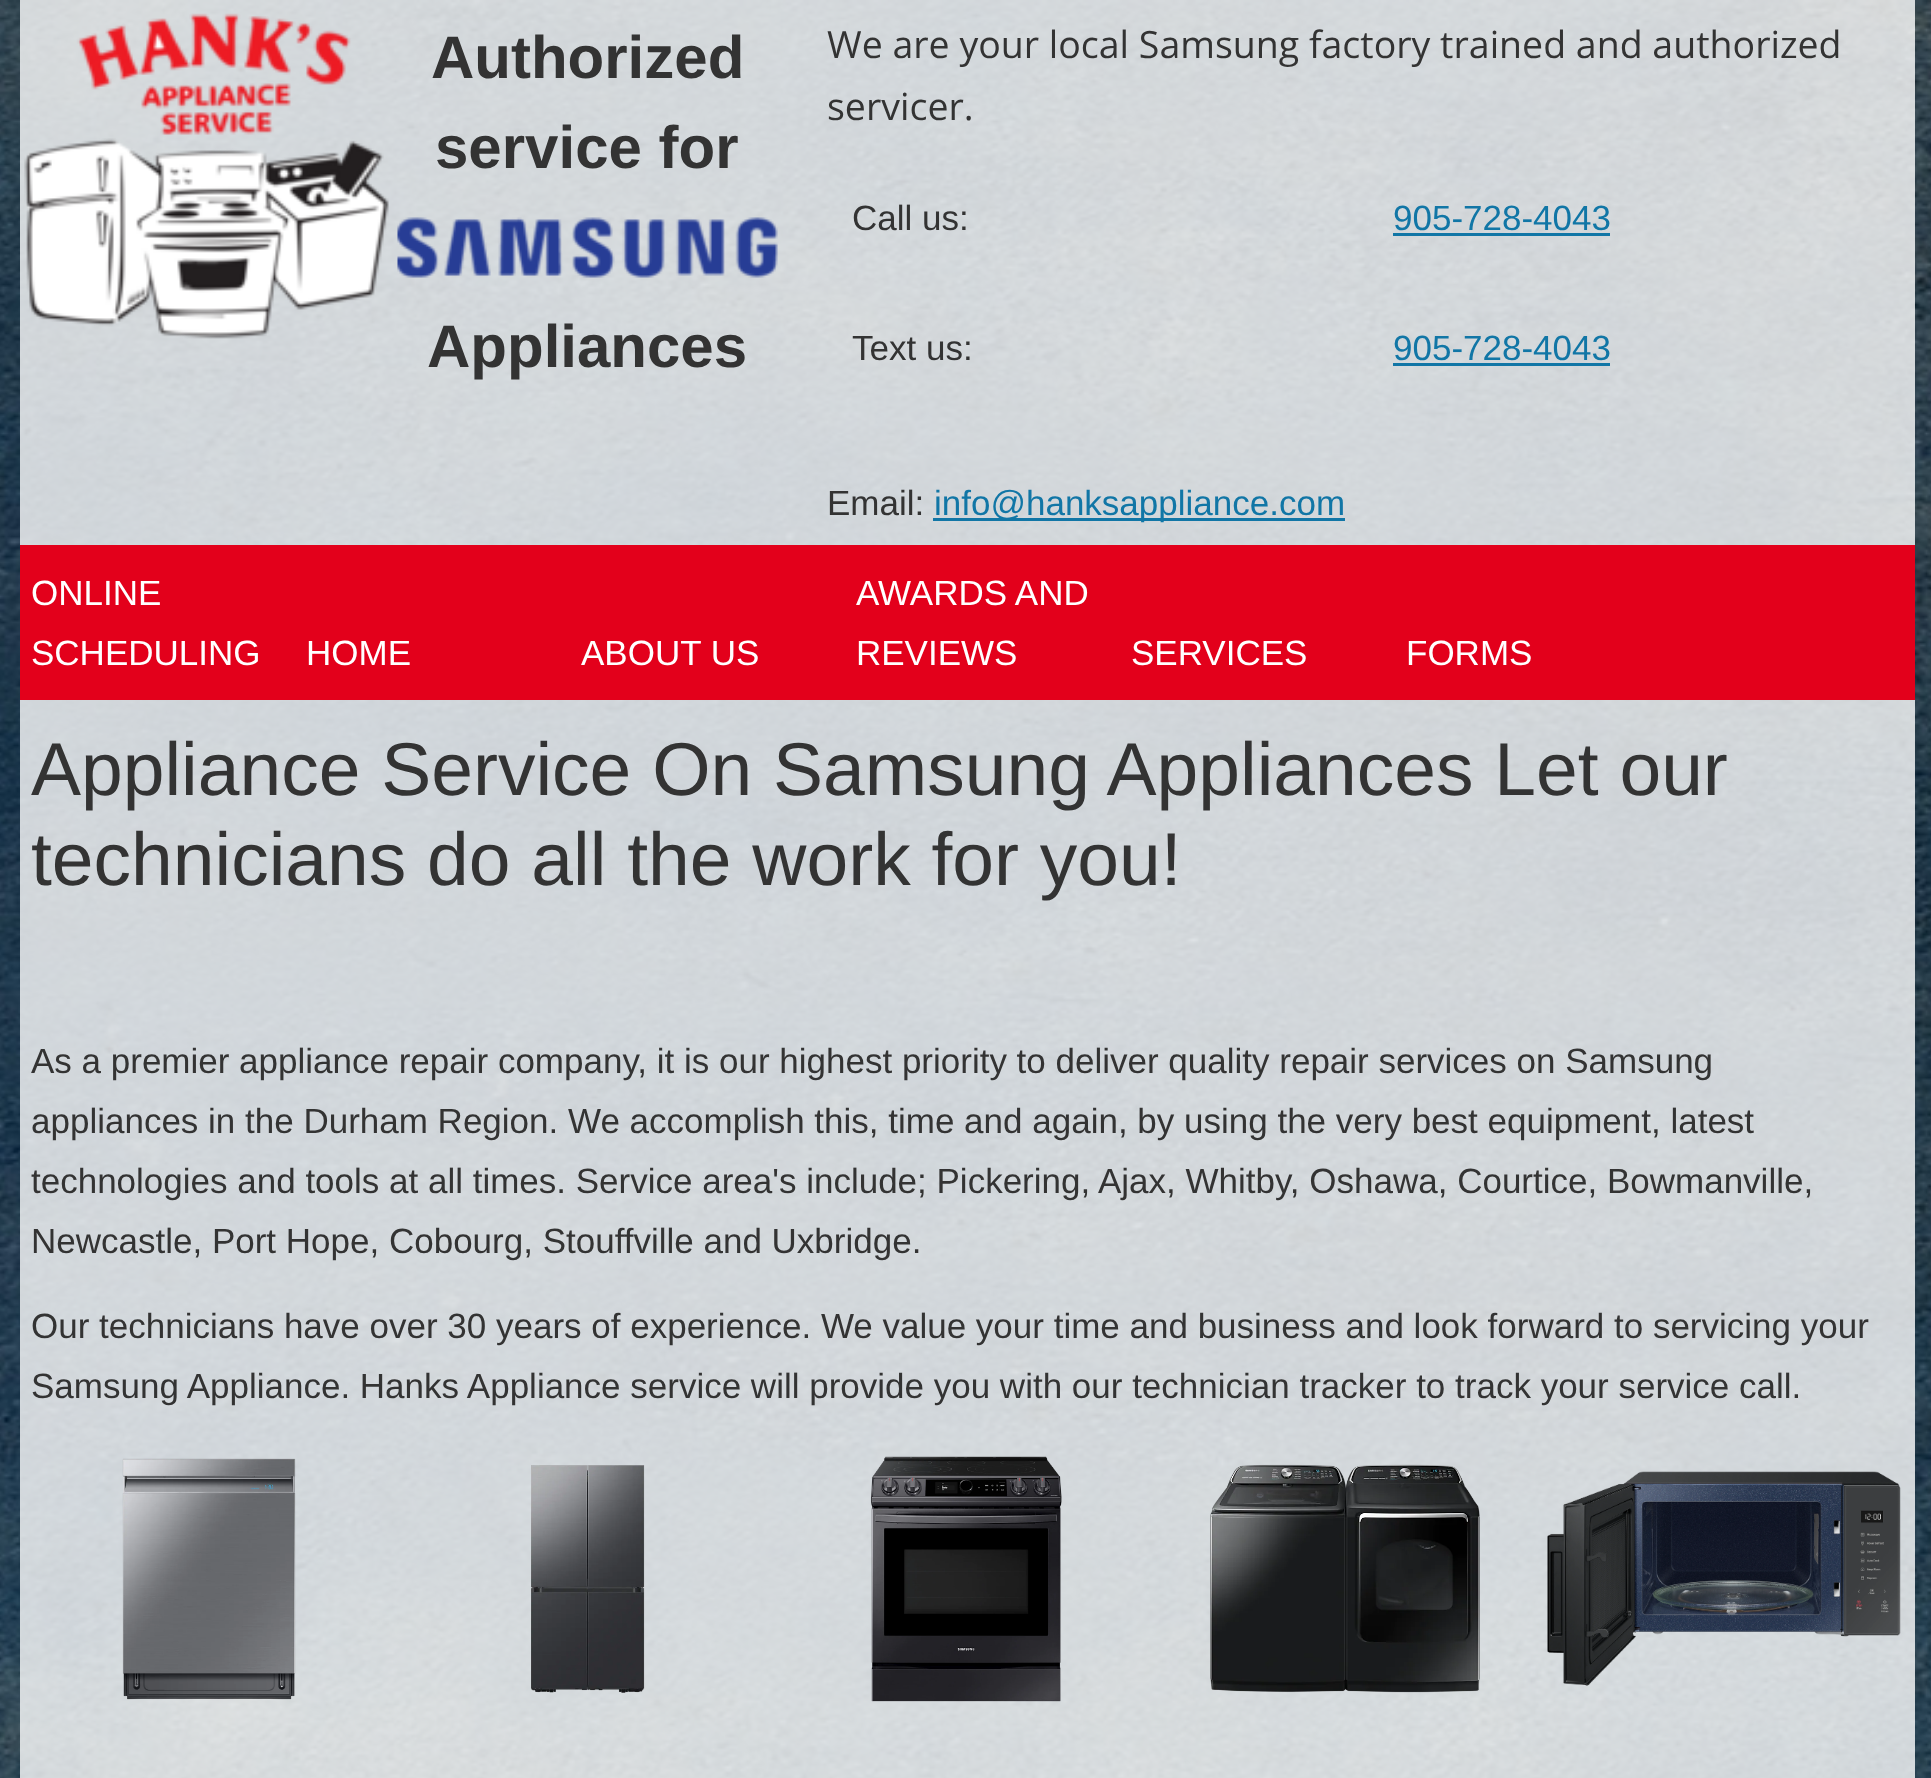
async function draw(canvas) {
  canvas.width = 1931;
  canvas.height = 1778;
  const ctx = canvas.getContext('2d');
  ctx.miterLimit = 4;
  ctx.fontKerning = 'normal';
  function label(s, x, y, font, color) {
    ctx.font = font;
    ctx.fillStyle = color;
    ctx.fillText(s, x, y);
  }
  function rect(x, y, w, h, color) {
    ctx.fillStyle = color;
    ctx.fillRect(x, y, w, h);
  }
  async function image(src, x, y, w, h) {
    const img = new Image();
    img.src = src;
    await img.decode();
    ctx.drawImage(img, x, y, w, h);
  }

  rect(0, 0, 1931, 1778, '#fff');
  await image('assets/img1.png', 0, 0, 1931, 1778);
  rect(20, 0, 1895, 545, '#ffffffcc');
  await image('assets/img2.png', 24, 13, 365, 326);
  label('Authorized', 431, 78, 'bold 60px Liberation Sans', '#333');
  label('service for', 435, 168, 'bold 60px Liberation Sans', '#333');
  await image('assets/img3.png', 397, 217, 381, 61);
  label('Appliances', 427, 367, 'bold 60px Liberation Sans', '#333');
  label('We are your local Samsung factory trained and authorized', 827, 58, '37.5px Open Sans', '#333');
  label('servicer.', 827, 120, '37.5px Open Sans', '#333');
  label('Call us:', 852, 230, '35px Liberation Sans', '#333');
  label('905-728-4043', 1393, 230, '35px Liberation Sans', '#1176a6');
  rect(1393, 233, 217, 3, '#1176a6');
  label('Text us:', 852, 360, '35px Liberation Sans', '#333');
  label('905-728-4043', 1393, 360, '35px Liberation Sans', '#1176a6');
  rect(1393, 363, 217, 3, '#1176a6');
  label('Email:', 827, 515, '35px Liberation Sans', '#333');
  rect(933, 518, 412, 3, '#1176a6');
  label('info@hanksappliance.com', 934, 515, '35px Liberation Sans', '#1176a6');
  rect(20, 545, 1895, 155, '#e3001b');
  label('ONLINE', 31, 605, '35px Liberation Sans', '#fff');
  label('SCHEDULING', 31, 665, '35px Liberation Sans', '#fff');
  label('HOME', 306, 665, '35px Liberation Sans', '#fff');
  label('ABOUT US', 581, 665, '35px Liberation Sans', '#fff');
  label('AWARDS AND', 856, 605, '35px Liberation Sans', '#fff');
  label('REVIEWS', 856, 665, '35px Liberation Sans', '#fff');
  label('SERVICES', 1131, 665, '35px Liberation Sans', '#fff');
  label('FORMS', 1406, 665, '35px Liberation Sans', '#fff');
  rect(20, 700, 1895, 728, '#ffffffcc');
  label('Appliance Service On Samsung Appliances Let our', 31, 795, '75px Liberation Sans', '#333');
  label('technicians do all the work for you!', 31, 885, '75px Liberation Sans', '#333');
  label('As a premier appliance repair company, it is our highest priority to deliver quality repair services on Samsung', 31, 1073, '35px Liberation Sans', '#333');
  label('appliances in the Durham Region. We accomplish this, time and again, by using the very best equipment, latest', 31, 1133, '35px Liberation Sans', '#333');
  label('technologies and tools at all times. Service area\'s include; Pickering, Ajax, Whitby, Oshawa, Courtice, Bowmanville,', 31, 1193, '35px Liberation Sans', '#333');
  label('Newcastle, Port Hope, Cobourg, Stouffville and Uxbridge.', 31, 1253, '35px Liberation Sans', '#333');
  label('Our technicians have over 30 years of experience. We value your time and business and look forward to servicing your', 31, 1338, '35px Liberation Sans', '#333');
  label('Samsung Appliance. Hanks Appliance service will provide you with our technician tracker to track your service call.', 31, 1398, '35px Liberation Sans', '#333');
  rect(20, 1428, 1895, 350, '#ffffffcc');
  await image('assets/img4.png', 122, 1458, 174, 242);
  await image('assets/img5.png', 531, 1465, 114, 228);
  await image('assets/img6.png', 870, 1456, 192, 246);
  await image('assets/img7.png', 1210, 1464, 270, 229);
  await image('assets/img8.png', 1547, 1471, 354, 215);
}

draw(document.querySelector('canvas'));
